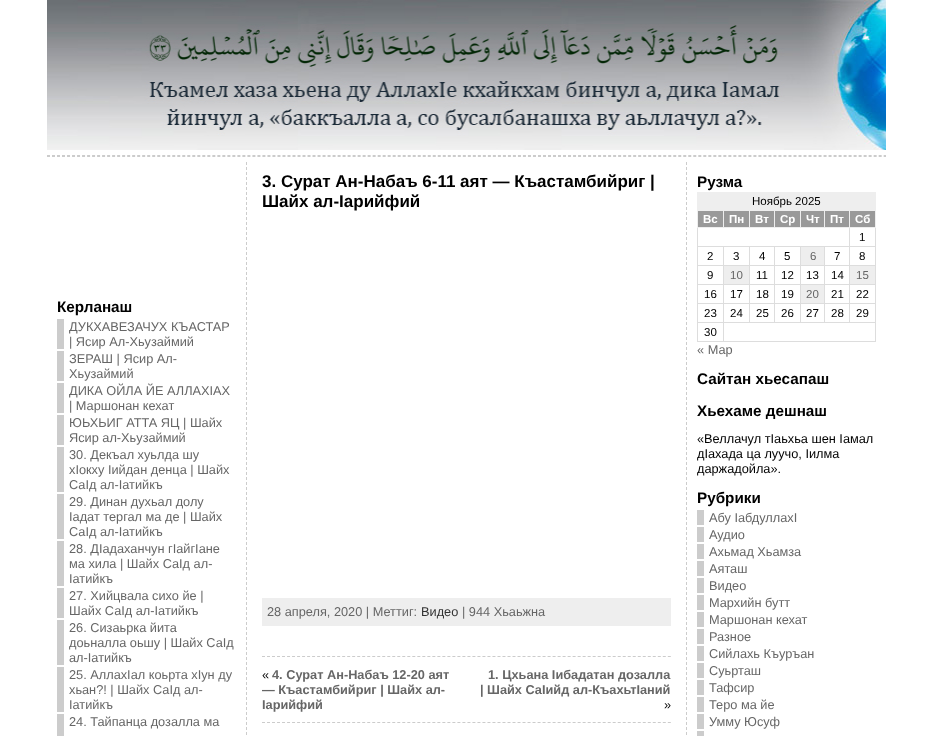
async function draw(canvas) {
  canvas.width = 933;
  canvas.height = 736;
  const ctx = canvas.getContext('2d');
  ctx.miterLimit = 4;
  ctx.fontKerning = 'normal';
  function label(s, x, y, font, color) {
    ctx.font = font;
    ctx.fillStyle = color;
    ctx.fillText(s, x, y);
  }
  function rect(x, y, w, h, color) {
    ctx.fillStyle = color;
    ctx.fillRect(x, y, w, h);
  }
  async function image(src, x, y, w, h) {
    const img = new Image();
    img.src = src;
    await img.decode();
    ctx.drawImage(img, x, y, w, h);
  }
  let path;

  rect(0, 0, 933, 736, '#fff');
  await image('assets/img1.png', 47, 0, 839, 150);
  path = new Path2D('M47 155.5H886');
  ctx.strokeStyle = '#ccc';
  ctx.setLineDash([3, 2.01]);
  ctx.stroke(path);
  path = new Path2D('M47 156.5H886');
  ctx.stroke(path);
  path = new Path2D('M246.5 162V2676');
  ctx.setLineDash([3, 2]);
  ctx.stroke(path);
  label('Керланаш', 57, 312, 'bold 15.25px Liberation Sans', '#000');
  rect(57, 319, 7, 30, '#ccc');
  label('ДУКХАВЕЗАЧУХ КЪАСТАР', 69, 331, '12.75px Liberation Sans', '#666');
  label('| Ясир Ал-Хьузаймий', 69, 346, '12.75px Liberation Sans', '#666');
  rect(57, 351, 7, 30, '#ccc');
  label('ЗЕРАШ | Ясир Ал-', 69, 363, '12.75px Liberation Sans', '#666');
  label('Хьузаймий', 69, 378, '12.75px Liberation Sans', '#666');
  rect(57, 383, 7, 30, '#ccc');
  label('ДИКА ОЙЛА ЙЕ АЛЛАХIАХ', 69, 395, '12.75px Liberation Sans', '#666');
  label('| Маршонан кехат', 69, 410, '12.75px Liberation Sans', '#666');
  rect(57, 415, 7, 30, '#ccc');
  label('ЮЬХЬИГ АТТА ЯЦ | Шайх', 69, 427, '12.75px Liberation Sans', '#666');
  label('Ясир ал-Хьузаймий', 69, 442, '12.75px Liberation Sans', '#666');
  rect(57, 447, 7, 45, '#ccc');
  label('30. Декъал хуьлда шу', 69, 459, '12.75px Liberation Sans', '#666');
  label('хIокху Iийдан денца | Шайх', 69, 474, '12.75px Liberation Sans', '#666');
  label('СаIд ал-Iатийкъ', 69, 489, '12.75px Liberation Sans', '#666');
  rect(57, 494, 7, 45, '#ccc');
  label('29. Динан духьал долу', 69, 506, '12.75px Liberation Sans', '#666');
  label('Iадат тергал ма де | Шайх', 69, 521, '12.75px Liberation Sans', '#666');
  label('СаIд ал-Iатийкъ', 69, 536, '12.75px Liberation Sans', '#666');
  rect(57, 541, 7, 45, '#ccc');
  label('28. ДIадаханчун гIайгIане', 69, 553, '12.75px Liberation Sans', '#666');
  label('ма хила | Шайх СаIд ал-', 69, 568, '12.75px Liberation Sans', '#666');
  label('Iатийкъ', 69, 583, '12.75px Liberation Sans', '#666');
  rect(57, 588, 7, 30, '#ccc');
  label('27. Хийцвала сихо йе |', 69, 600, '12.75px Liberation Sans', '#666');
  label('Шайх СаIд ал-Iатийкъ', 69, 615, '12.75px Liberation Sans', '#666');
  rect(57, 620, 7, 45, '#ccc');
  label('26. Сизаьрка йита', 69, 632, '12.75px Liberation Sans', '#666');
  label('доьналла оьшу | Шайх СаIд', 69, 647, '12.75px Liberation Sans', '#666');
  label('ал-Iатийкъ', 69, 662, '12.75px Liberation Sans', '#666');
  rect(57, 667, 7, 45, '#ccc');
  label('25. АллахIал коьрта хIун ду', 69, 679, '12.75px Liberation Sans', '#666');
  label('хьан?! | Шайх СаIд ал-', 69, 694, '12.75px Liberation Sans', '#666');
  label('Iатийкъ', 69, 709, '12.75px Liberation Sans', '#666');
  rect(57, 714, 7, 22, '#ccc');
  label('24. Тайпанца дозалла ма', 69, 726, '12.75px Liberation Sans', '#666');
  label('3. Сурат Ан-Набаъ 6-11 аят — Къастамбийриг |', 262, 187, 'bold 17px Liberation Sans', '#000');
  label('Шайх ал-Iарийфий', 262, 207, 'bold 17px Liberation Sans', '#000');
  rect(262, 598, 409, 28, '#eee');
  label('28 апреля, 2020 | Меттиг:', 267, 616, '12.75px Liberation Sans', '#666');
  label('Видео', 421, 616, '12.75px Liberation Sans', '#333');
  label('| 944 Хьаьжна', 462, 616, '12.75px Liberation Sans', '#666');
  path = new Path2D('M262 656.5H671');
  ctx.setLineDash([3, 2.01]);
  ctx.stroke(path);
  path = new Path2D('M262 722.5H671');
  ctx.stroke(path);
  label('«', 262, 679, '12.75px Liberation Sans', '#000');
  label('4. Сурат Ан-Набаъ 12-20 аят', 272, 679, 'bold 12.75px Liberation Sans', '#666');
  label('— Къастамбийриг | Шайх ал-', 262, 694, 'bold 12.75px Liberation Sans', '#666');
  label('Iарийфий', 262, 709, 'bold 12.75px Liberation Sans', '#666');
  label('1. Цхьана Iибадатан дозалла', 488, 679, 'bold 12.75px Liberation Sans', '#666');
  label('| Шайх СаIийд ал-КъахьтIаний', 480, 694, 'bold 12.75px Liberation Sans', '#666');
  label('»', 664, 709, '12.75px Liberation Sans', '#000');
  path = new Path2D('M686.5 162V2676');
  ctx.setLineDash([3, 2]);
  ctx.stroke(path);
  label('Рузма', 697, 187, 'bold 15.25px Liberation Sans', '#000');
  rect(697, 192, 179, 18, '#eee');
  label('Ноябрь 2025', 752, 205, '11.5px Liberation Sans', '#000');
  rect(698, 211, 25, 16, '#999');
  rect(849, 210, 27, 1, '#eee');
  rect(849, 246, 27, 1, '#ddd');
  rect(849, 265, 27, 1, '#ddd');
  rect(849, 284, 27, 1, '#ddd');
  rect(849, 303, 27, 1, '#ddd');
  rect(723, 322, 153, 1, '#ddd');
  rect(875, 322, 1, 20, '#ddd');
  rect(875, 303, 1, 20, '#ddd');
  rect(875, 284, 1, 20, '#ddd');
  rect(875, 265, 1, 20, '#ddd');
  rect(875, 227, 1, 39, '#ddd');
  rect(875, 210, 1, 18, '#eee');
  rect(849, 303, 1, 20, '#ddd');
  rect(824, 303, 26, 1, '#ddd');
  rect(849, 284, 1, 20, '#ddd');
  rect(824, 284, 26, 1, '#ddd');
  rect(849, 265, 1, 20, '#ddd');
  rect(824, 265, 26, 1, '#ddd');
  rect(849, 246, 1, 20, '#ddd');
  rect(824, 246, 26, 1, '#ddd');
  rect(849, 227, 1, 20, '#ddd');
  rect(849, 227, 27, 1, '#eee');
  rect(849, 210, 1, 18, '#eee');
  rect(824, 210, 26, 1, '#eee');
  rect(824, 227, 26, 1, '#eee');
  rect(824, 210, 1, 18, '#eee');
  rect(800, 210, 25, 1, '#eee');
  rect(800, 227, 25, 1, '#eee');
  rect(800, 210, 1, 18, '#eee');
  rect(774, 210, 27, 1, '#eee');
  rect(774, 227, 27, 1, '#eee');
  rect(774, 210, 1, 18, '#eee');
  rect(749, 210, 26, 1, '#eee');
  rect(749, 227, 26, 1, '#eee');
  rect(749, 210, 1, 18, '#eee');
  rect(723, 210, 27, 1, '#eee');
  rect(723, 227, 27, 1, '#eee');
  rect(723, 210, 1, 18, '#eee');
  rect(697, 210, 27, 1, '#eee');
  rect(824, 303, 1, 20, '#ddd');
  rect(800, 303, 25, 1, '#ddd');
  rect(824, 284, 1, 20, '#ddd');
  rect(800, 284, 25, 1, '#ddd');
  rect(824, 265, 1, 20, '#ddd');
  rect(800, 265, 25, 1, '#ddd');
  rect(824, 246, 1, 20, '#ddd');
  rect(800, 246, 25, 1, '#ddd');
  rect(800, 303, 1, 20, '#ddd');
  rect(774, 303, 27, 1, '#ddd');
  rect(800, 284, 1, 20, '#ddd');
  rect(774, 284, 27, 1, '#ddd');
  rect(800, 265, 1, 20, '#ddd');
  rect(774, 265, 27, 1, '#ddd');
  rect(800, 246, 1, 20, '#ddd');
  rect(774, 246, 27, 1, '#ddd');
  rect(774, 303, 1, 20, '#ddd');
  rect(749, 303, 26, 1, '#ddd');
  rect(774, 284, 1, 20, '#ddd');
  rect(749, 284, 26, 1, '#ddd');
  rect(774, 265, 1, 20, '#ddd');
  rect(749, 265, 26, 1, '#ddd');
  rect(774, 246, 1, 20, '#ddd');
  rect(749, 246, 26, 1, '#ddd');
  rect(749, 303, 1, 20, '#ddd');
  rect(723, 303, 27, 1, '#ddd');
  rect(749, 284, 1, 20, '#ddd');
  rect(723, 284, 27, 1, '#ddd');
  rect(749, 265, 1, 20, '#ddd');
  rect(723, 265, 27, 1, '#ddd');
  rect(749, 246, 1, 20, '#ddd');
  rect(723, 246, 27, 1, '#ddd');
  rect(723, 341, 153, 1, '#ddd');
  rect(723, 322, 1, 20, '#ddd');
  rect(697, 322, 27, 1, '#ddd');
  rect(723, 303, 1, 20, '#ddd');
  rect(697, 303, 27, 1, '#ddd');
  rect(723, 284, 1, 20, '#ddd');
  rect(697, 284, 27, 1, '#ddd');
  rect(723, 265, 1, 20, '#ddd');
  rect(697, 265, 27, 1, '#ddd');
  rect(723, 246, 1, 20, '#ddd');
  rect(697, 246, 27, 1, '#ddd');
  rect(697, 341, 27, 1, '#ddd');
  rect(697, 322, 1, 20, '#ddd');
  rect(697, 303, 1, 20, '#ddd');
  rect(697, 284, 1, 20, '#ddd');
  rect(697, 265, 1, 20, '#ddd');
  rect(697, 227, 1, 39, '#ddd');
  rect(697, 227, 27, 1, '#eee');
  rect(697, 210, 1, 18, '#eee');
  label('Вс', 703, 223, 'bold 11.5px Liberation Sans', '#fff');
  rect(724, 211, 25, 16, '#999');
  label('Пн', 729, 223, 'bold 11.5px Liberation Sans', '#fff');
  rect(750, 211, 24, 16, '#999');
  label('Вт', 755, 223, 'bold 11.5px Liberation Sans', '#fff');
  rect(775, 211, 25, 16, '#999');
  label('Ср', 780, 223, 'bold 11.5px Liberation Sans', '#fff');
  rect(801, 211, 23, 16, '#999');
  label('Чт', 806, 223, 'bold 11.5px Liberation Sans', '#fff');
  rect(825, 211, 24, 16, '#999');
  label('Пт', 830, 223, 'bold 11.5px Liberation Sans', '#fff');
  rect(850, 211, 25, 16, '#999');
  label('Сб', 855, 223, 'bold 11.5px Liberation Sans', '#fff');
  label('1', 859, 241, '11.5px Liberation Sans', '#000');
  label('2', 707, 260, '11.5px Liberation Sans', '#000');
  label('3', 733, 260, '11.5px Liberation Sans', '#000');
  label('4', 759, 260, '11.5px Liberation Sans', '#000');
  label('5', 784, 260, '11.5px Liberation Sans', '#000');
  rect(801, 247, 23, 18, '#eee');
  label('6', 810, 260, '11.5px Liberation Sans', '#666');
  label('7', 834, 260, '11.5px Liberation Sans', '#000');
  label('8', 859, 260, '11.5px Liberation Sans', '#000');
  label('9', 707, 279, '11.5px Liberation Sans', '#000');
  rect(724, 266, 25, 18, '#eee');
  label('10', 730, 279, '11.5px Liberation Sans', '#666');
  label('11', 756, 279, '11.5px Liberation Sans', '#000');
  label('12', 781, 279, '11.5px Liberation Sans', '#000');
  label('13', 806, 279, '11.5px Liberation Sans', '#000');
  label('14', 831, 279, '11.5px Liberation Sans', '#000');
  rect(850, 266, 25, 18, '#eee');
  label('15', 856, 279, '11.5px Liberation Sans', '#666');
  label('16', 704, 298, '11.5px Liberation Sans', '#000');
  label('17', 730, 298, '11.5px Liberation Sans', '#000');
  label('18', 756, 298, '11.5px Liberation Sans', '#000');
  label('19', 781, 298, '11.5px Liberation Sans', '#000');
  rect(801, 285, 23, 18, '#eee');
  label('20', 806, 298, '11.5px Liberation Sans', '#666');
  label('21', 831, 298, '11.5px Liberation Sans', '#000');
  label('22', 856, 298, '11.5px Liberation Sans', '#000');
  label('23', 704, 317, '11.5px Liberation Sans', '#000');
  label('24', 730, 317, '11.5px Liberation Sans', '#000');
  label('25', 756, 317, '11.5px Liberation Sans', '#000');
  label('26', 781, 317, '11.5px Liberation Sans', '#000');
  label('27', 806, 317, '11.5px Liberation Sans', '#000');
  label('28', 831, 317, '11.5px Liberation Sans', '#000');
  label('29', 856, 317, '11.5px Liberation Sans', '#000');
  label('30', 704, 336, '11.5px Liberation Sans', '#000');
  label('« Мар', 697, 354, '12.75px Liberation Sans', '#666');
  label('Сайтан хьесапаш', 697, 384, 'bold 15.25px Liberation Sans', '#000');
  label('Хьехаме дешнаш', 697, 416, 'bold 15.25px Liberation Sans', '#000');
  label('«Веллачул тIаьхьа шен Iамал', 697, 443, '12.75px Liberation Sans', '#000');
  label('дIахада ца луучо, Iилма', 697, 458, '12.75px Liberation Sans', '#000');
  label('даржадойла».', 697, 473, '12.75px Liberation Sans', '#000');
  label('Рубрики', 697, 503, 'bold 15.25px Liberation Sans', '#000');
  label('Абу IабдуллахI', 709, 522, '12.75px Liberation Sans', '#666');
  rect(697, 510, 7, 15, '#ccc');
  label('Аудио', 709, 539, '12.75px Liberation Sans', '#666');
  rect(697, 527, 7, 15, '#ccc');
  label('Ахьмад Хьамза', 709, 556, '12.75px Liberation Sans', '#666');
  rect(697, 544, 7, 15, '#ccc');
  label('Аяташ', 709, 573, '12.75px Liberation Sans', '#666');
  rect(697, 561, 7, 15, '#ccc');
  label('Видео', 709, 590, '12.75px Liberation Sans', '#666');
  rect(697, 578, 7, 15, '#ccc');
  label('Мархийн бутт', 709, 607, '12.75px Liberation Sans', '#666');
  rect(697, 595, 7, 15, '#ccc');
  label('Маршонан кехат', 709, 624, '12.75px Liberation Sans', '#666');
  rect(697, 612, 7, 15, '#ccc');
  label('Разное', 709, 641, '12.75px Liberation Sans', '#666');
  rect(697, 629, 7, 15, '#ccc');
  label('Сийлахь Къуръан', 709, 658, '12.75px Liberation Sans', '#666');
  rect(697, 646, 7, 15, '#ccc');
  label('Суьрташ', 709, 675, '12.75px Liberation Sans', '#666');
  rect(697, 663, 7, 15, '#ccc');
  label('Тафсир', 709, 692, '12.75px Liberation Sans', '#666');
  rect(697, 680, 7, 15, '#ccc');
  label('Теро ма йе', 709, 709, '12.75px Liberation Sans', '#666');
  rect(697, 697, 7, 15, '#ccc');
  label('Умму Юсуф', 709, 726, '12.75px Liberation Sans', '#666');
  rect(697, 714, 7, 15, '#ccc');
  rect(697, 731, 7, 5, '#ccc');
}

draw(document.querySelector('canvas'));
